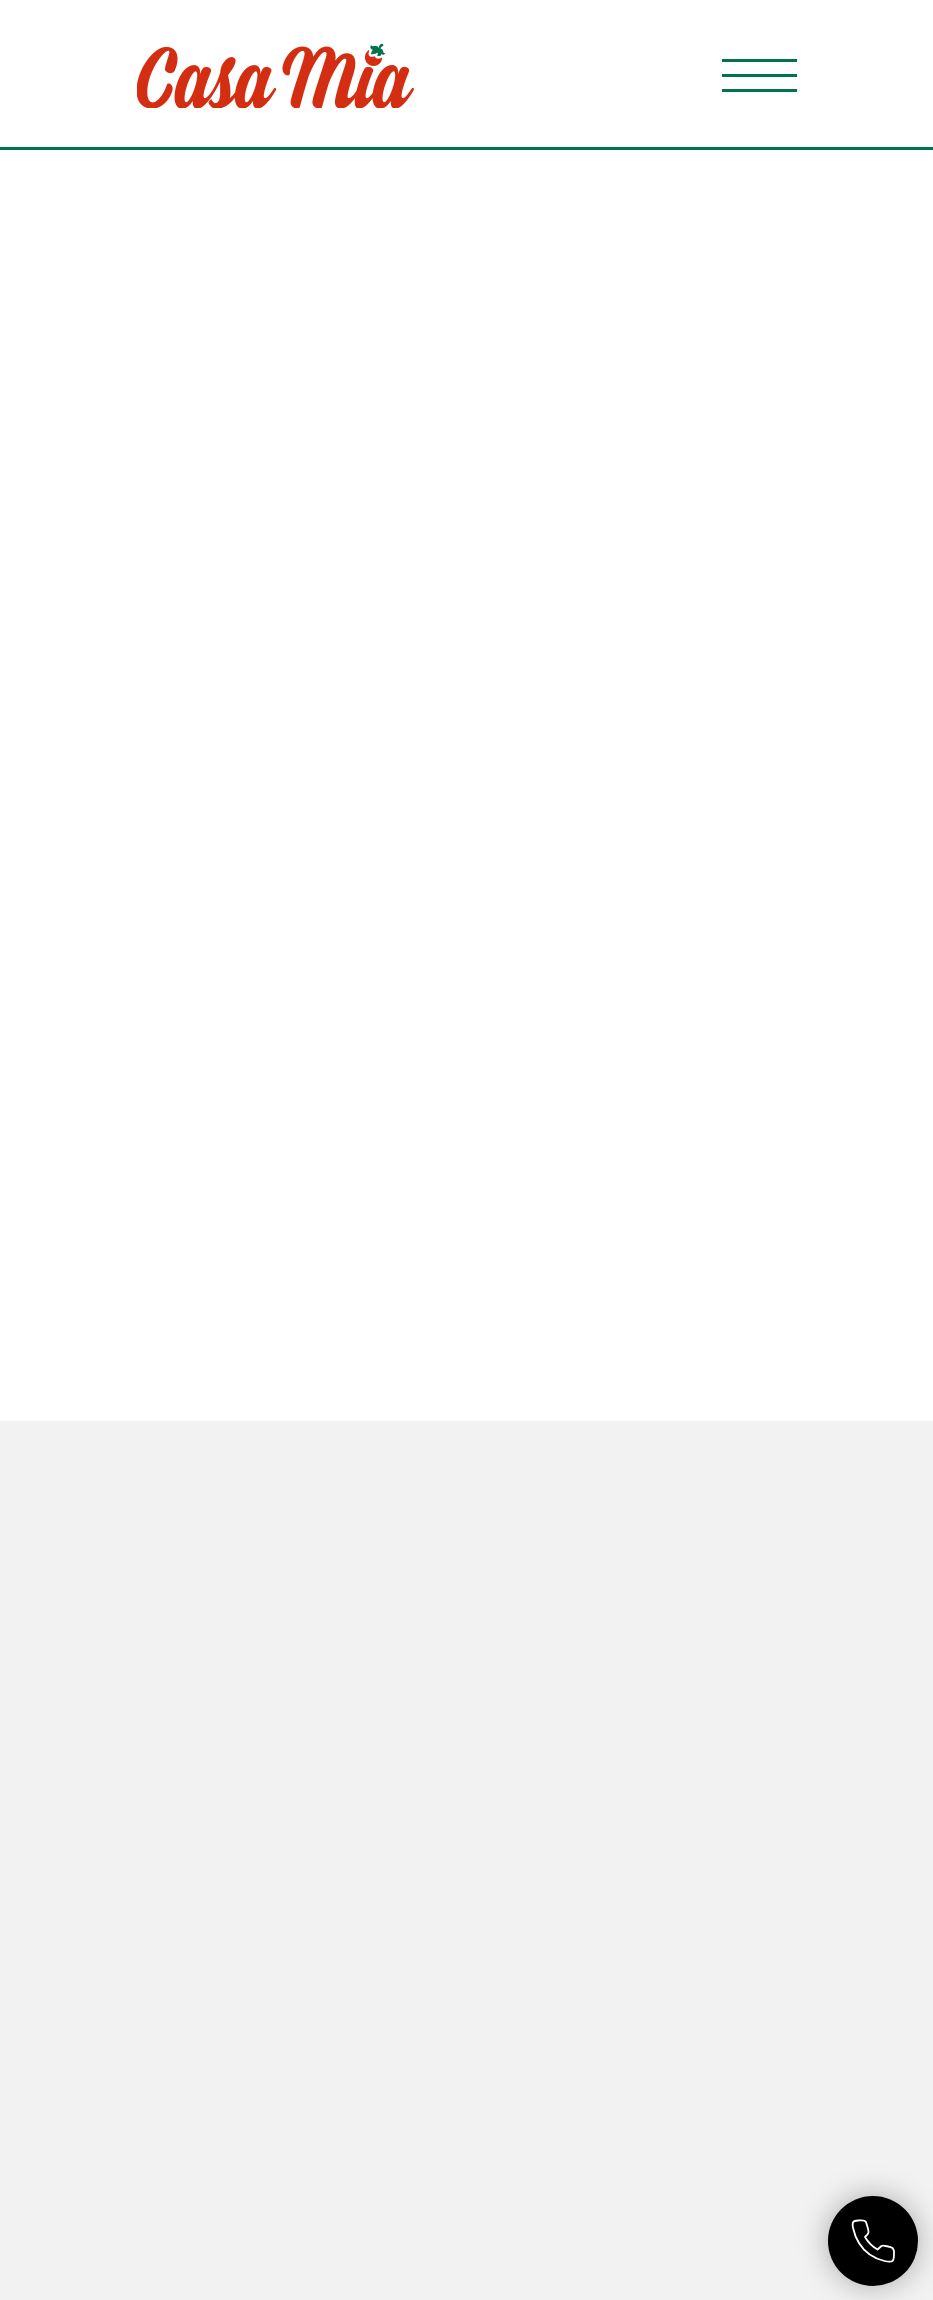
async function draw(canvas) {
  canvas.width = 933;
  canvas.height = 2300;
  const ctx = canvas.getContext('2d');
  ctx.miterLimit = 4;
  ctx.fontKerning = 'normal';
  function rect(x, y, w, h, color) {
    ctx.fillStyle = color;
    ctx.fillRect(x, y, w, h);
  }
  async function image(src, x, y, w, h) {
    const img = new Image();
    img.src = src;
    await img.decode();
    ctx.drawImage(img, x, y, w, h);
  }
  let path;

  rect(0, 0, 933, 2300, '#fff');
  await image('assets/img1.png', 137, 44, 277, 64);
  rect(722, 59, 75, 3, '#00734d');
  rect(722, 74, 75, 3, '#00734d');
  rect(722, 89, 75, 3, '#00734d');
  rect(0, 147, 933, 3, '#00734d');
  rect(0, 1421, 933, 879, '#f2f2f2');
  ctx.fillStyle = '#0000004d';
  ctx.filter = 'blur(15px)';
  ctx.beginPath();
  ctx.roundRect(828, 2196, 90, 90, 45);
  ctx.fill();
  ctx.filter = 'none';
  ctx.fillStyle = '#000';
  ctx.beginPath();
  ctx.arc(873, 2241, 45, 0, 2 * Math.PI);
  ctx.fill();
  path = new Path2D('M894 2251.5C894 2260 894.5 2263.5 884.5 2261C874 2258.5 864.5 2252 859 2243C856.5 2239 854.5 2234.5 853.5 2229.5C852 2224.5 851.5 2220.5 858 2220.5C860.5 2220.5 864.5 2219.5 866 2222L867.5 2227C869 2232.5 869.5 2232.5 865 2237C868 2242 872 2246.5 877.5 2249.5L881.5 2246C883 2245 891 2247 892.5 2248C893 2249 894 2250 894 2251.5Z');
  ctx.strokeStyle = '#fff';
  ctx.lineWidth = 1.8;
  ctx.lineCap = 'round';
  ctx.lineJoin = 'round';
  ctx.stroke(path);
}

draw(document.querySelector('canvas'));
